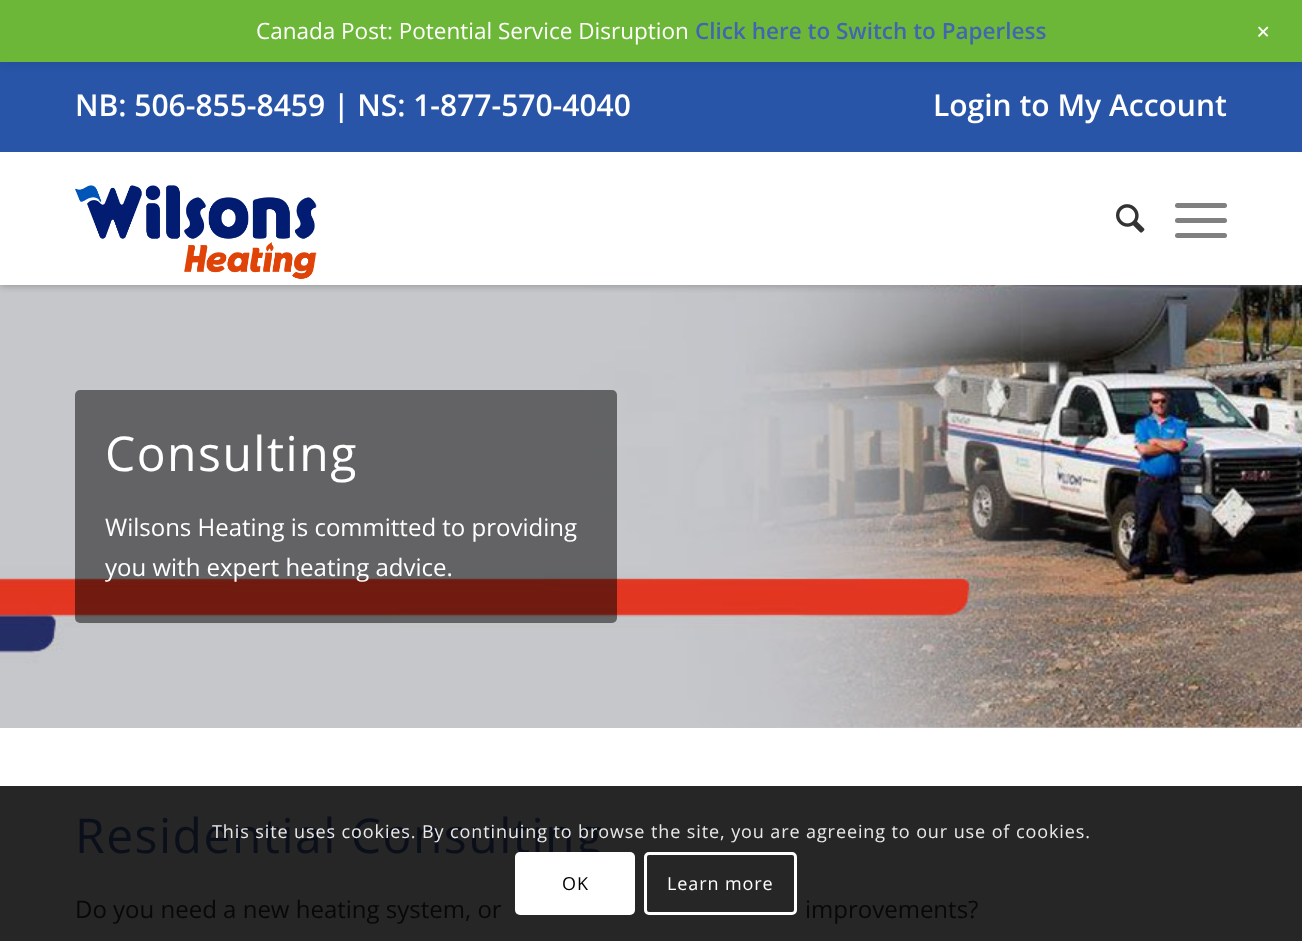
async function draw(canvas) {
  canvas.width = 1302;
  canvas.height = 941;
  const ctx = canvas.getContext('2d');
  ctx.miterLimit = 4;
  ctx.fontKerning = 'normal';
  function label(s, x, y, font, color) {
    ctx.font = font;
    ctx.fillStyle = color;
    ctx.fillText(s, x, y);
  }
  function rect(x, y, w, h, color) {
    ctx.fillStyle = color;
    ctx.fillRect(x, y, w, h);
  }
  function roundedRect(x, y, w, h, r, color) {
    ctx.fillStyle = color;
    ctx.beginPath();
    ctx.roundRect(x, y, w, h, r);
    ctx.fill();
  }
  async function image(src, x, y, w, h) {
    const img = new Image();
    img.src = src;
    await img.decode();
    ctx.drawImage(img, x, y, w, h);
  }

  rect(0, 0, 1302, 941, '#fff');
  rect(0, 786, 1302, 155, '#262626');
  rect(0, 727, 1302, 1, '#c5c6ca');
  await image('assets/img3.png', 0, 285, 1302, 443);
  ctx.save();
  ctx.beginPath();
  ctx.rect(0, 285, 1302, 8);
  ctx.clip();
  ctx.fillStyle = '#888';
  ctx.filter = 'blur(4px)';
  ctx.beginPath();
  ctx.rect(0, 62, 1302, 223);
  ctx.fill();
  ctx.filter = 'none';
  ctx.restore();
  rect(0, 62, 1302, 90, '#2855a8');
  ctx.fillStyle = '#0000000d';
  ctx.filter = 'blur(3px)';
  ctx.beginPath();
  ctx.rect(0, 5, 1302, 61);
  ctx.fill();
  ctx.filter = 'none';
  rect(0, 0, 1302, 62, '#6db738');
  label('Canada Post: Potential Service Disruption', 256, 39, '22.5px Open Sans', '#fff');
  label('Click here to Switch to Paperless', 695, 39, '600 22.5px Open Sans', '#4166af');
  ctx.font = '27px Open Sans';
  ctx.fillStyle = '#fff';
  ctx.save();
  ctx.translate(1251, 33);
  ctx.rotate(45 * Math.PI / 180);
  ctx.fillText('+', 0, 0);
  ctx.restore();
  label('NB: 506-855-8459 | NS: 1-877-570-4040', 75, 116, '600 30px Open Sans', '#fff');
  label('Login to My Account', 933, 116, '600 30px Open Sans', '#fff');
  await image('assets/img1.png', 75, 185, 242, 94);
  await image('assets/img2.png', 1116, 204, 29, 29);
  roundedRect(1175, 218, 52, 5, 2.5, '#808080');
  roundedRect(1175, 203, 52, 5, 2.5, '#808080');
  roundedRect(1175, 233, 52, 5, 2.5, '#808080');
  roundedRect(75, 390, 542, 233, 5, '#00000080');
  ctx.letterSpacing = '1.5px';
  label('Consulting', 105, 471, '48px Open Sans', '#fff');
  ctx.letterSpacing = '0px';
  label('Wilsons Heating is committed to providing', 105, 536, '24px Open Sans', '#fff');
  label('you with expert heating advice.', 105, 576, '24px Open Sans', '#fff');
  ctx.letterSpacing = '1.5px';
  label('Residential Consulting', 75, 853, '48px Open Sans', '#0a0f1a');
  ctx.letterSpacing = '0px';
  label('Do you need a new heating system, or', 75, 918, '24px Open Sans', '#080808');
  label('improvements?', 805, 918, '24px Open Sans', '#080808');
  ctx.letterSpacing = '0.9px';
  label('This site uses cookies. By continuing to browse the site, you are agreeing to our use of cookies.', 212, 838, '18px Open Sans', '#e9e9e9');
  roundedRect(515, 852, 120, 63, 5, '#fff');
  label('OK', 562, 890, '18px Open Sans', '#000');
  ctx.beginPath();
  ctx.roundRect(645.5, 853.5, 150, 60, 3.5);
  ctx.strokeStyle = '#fff';
  ctx.lineWidth = 3;
  ctx.stroke();
  label('Learn more', 667, 890, '18px Open Sans', '#fff');
}

draw(document.querySelector('canvas'));
